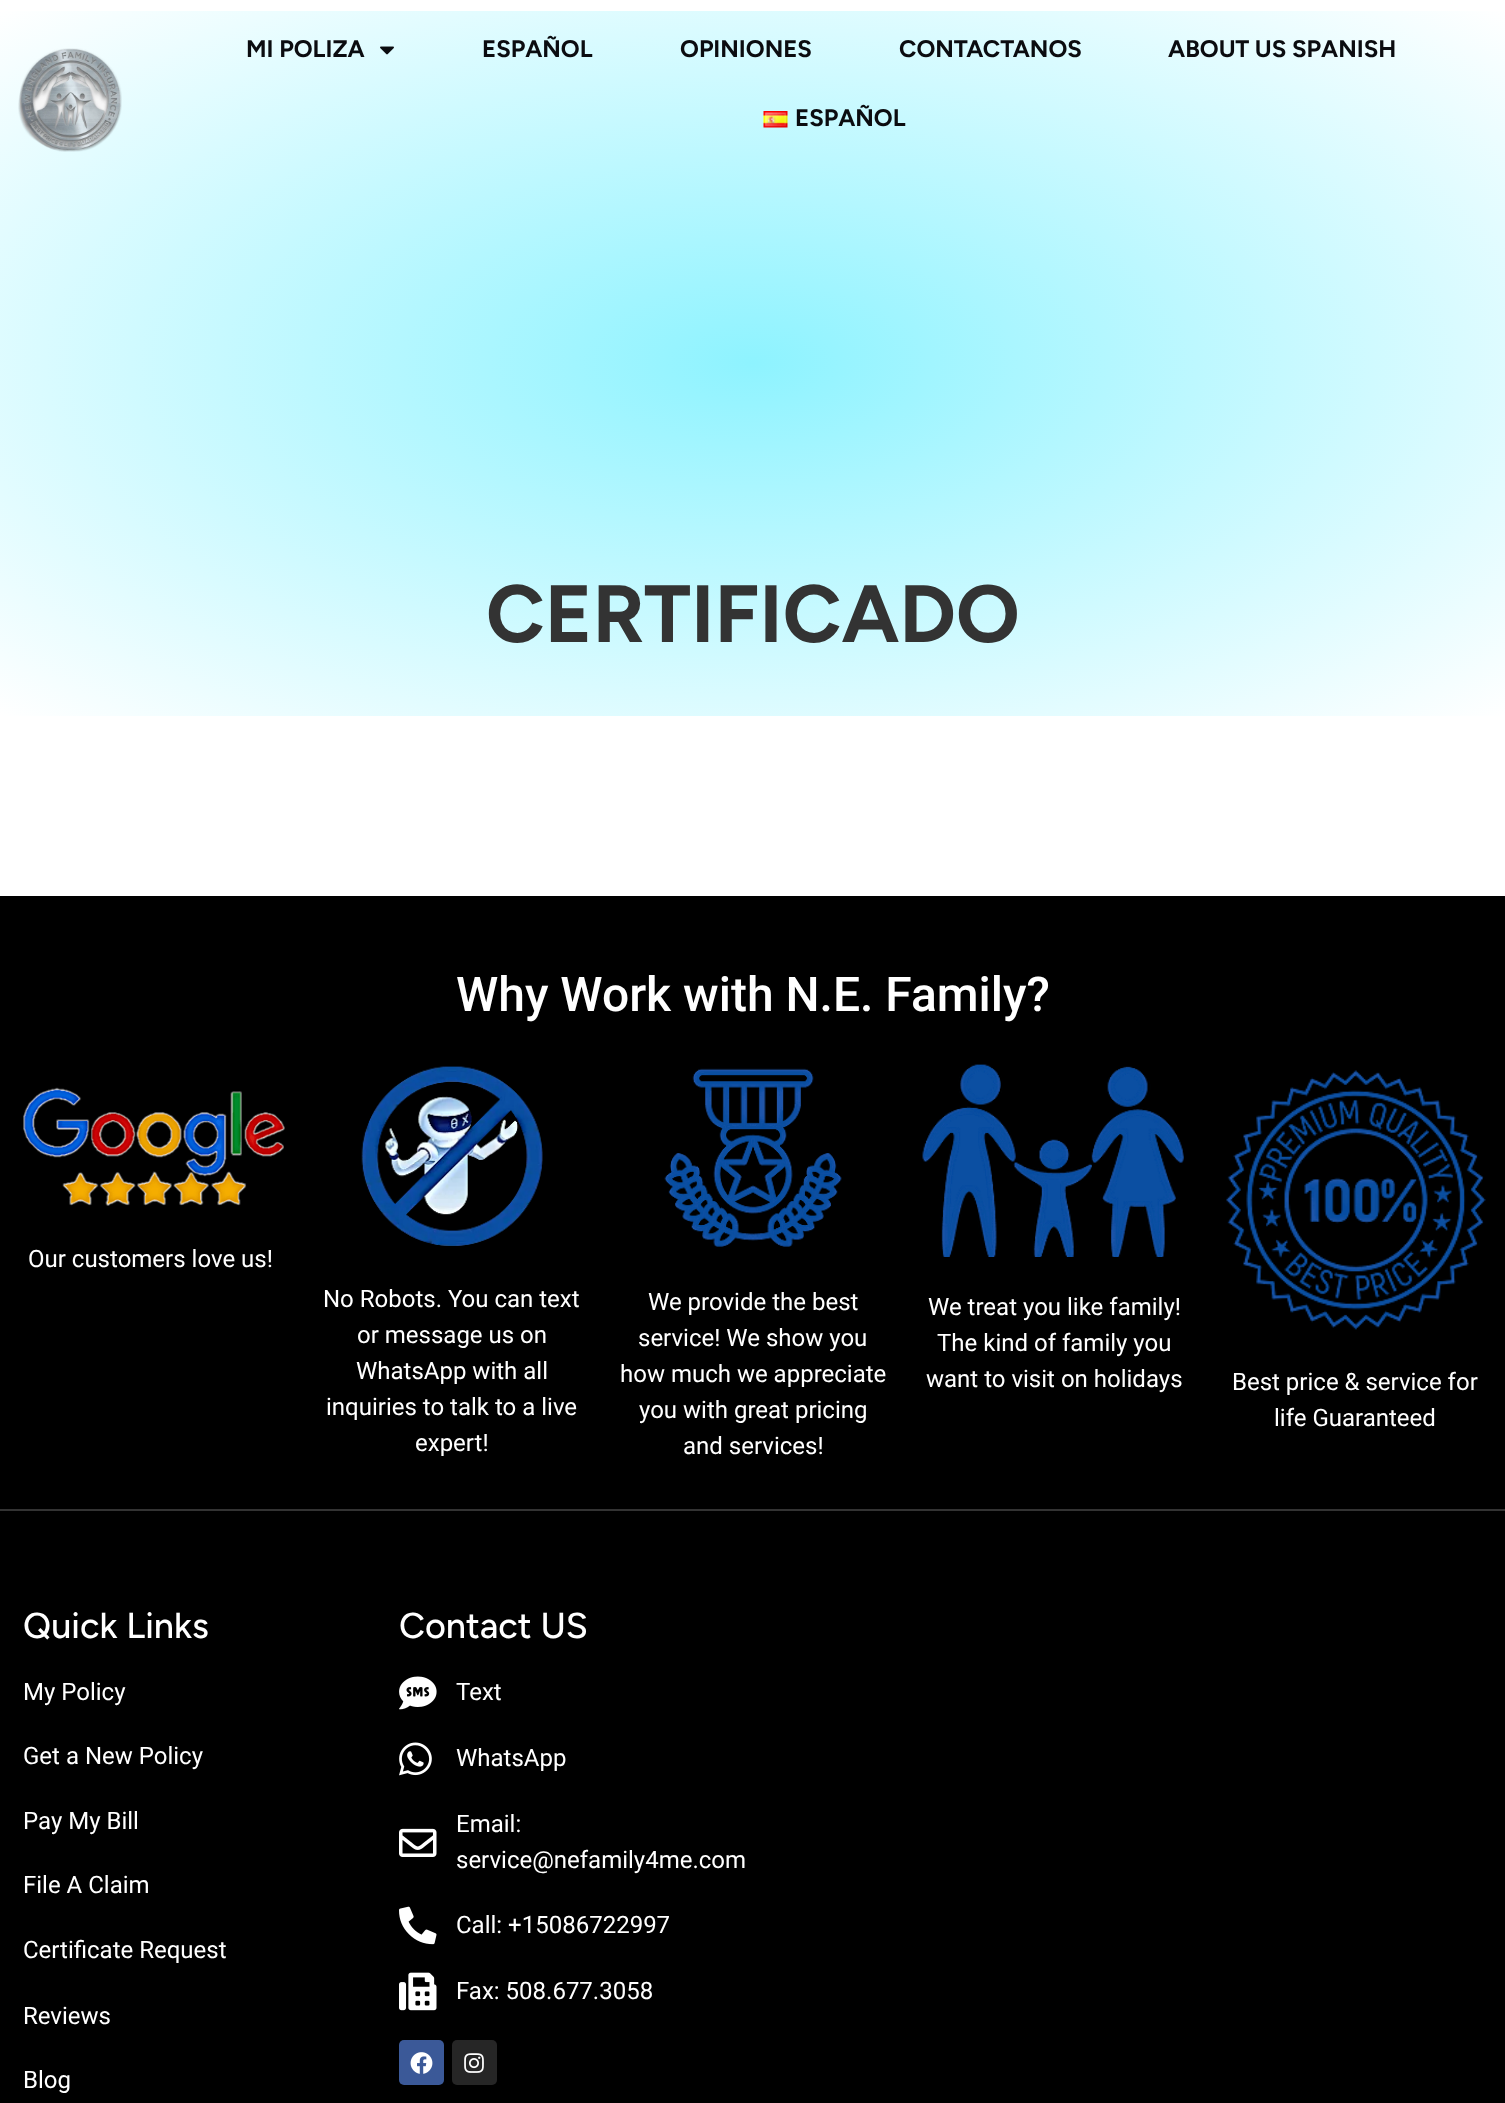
async function draw(canvas) {
  canvas.width = 1505;
  canvas.height = 2103;
  const ctx = canvas.getContext('2d');
  ctx.miterLimit = 4;
  ctx.fontKerning = 'normal';
  function label(s, x, y, font, color) {
    ctx.font = font;
    ctx.fillStyle = color;
    ctx.fillText(s, x, y);
  }
  function rect(x, y, w, h, color) {
    ctx.fillStyle = color;
    ctx.fillRect(x, y, w, h);
  }
  function roundedRect(x, y, w, h, r, color) {
    ctx.fillStyle = color;
    ctx.beginPath();
    ctx.roundRect(x, y, w, h, r);
    ctx.fill();
  }
  async function image(src, x, y, w, h) {
    const img = new Image();
    img.src = src;
    await img.decode();
    ctx.drawImage(img, x, y, w, h);
  }
  let gradient;

  rect(0, 0, 1505, 2103, '#fff');
  gradient = ctx.createRadialGradient(753, 774.74, 0, 753, 774.74, 1065);
  gradient.addColorStop(0, '#8ef3ff');
  gradient.addColorStop(1, '#fff');
  ctx.fillStyle = gradient;
  ctx.beginPath();
  ctx.rect(0, 11, 1505, 705);
  ctx.save();
  ctx.clip();
  ctx.scale(1, 499 / 1065);
  ctx.fillRect(0, 0, 1505, 4489);
  ctx.restore();
  await image('assets/img1.png', 18, 48, 104, 104);
  label('MI POLIZA', 246, 57, 'bold 24px Figtree', '#0b0c10');
  await image('assets/img2.png', 380, 46, 14, 9);
  label('ESPAÑOL', 482, 57, 'bold 24px Figtree', '#0b0c10');
  label('OPINIONES', 680, 57, 'bold 24px Figtree', '#0b0c10');
  label('CONTACTANOS', 899, 57, 'bold 24px Figtree', '#0b0c10');
  label('ABOUT US SPANISH', 1168, 57, 'bold 24px Figtree', '#0b0c10');
  await image('assets/img3.png', 763, 111, 25, 17);
  label('ESPAÑOL', 795, 126, 'bold 24px Figtree', '#0b0c10');
  label('CERTIFICADO', 486, 642, 'bold 81px Figtree', '#333');
  rect(0, 896, 1505, 1207, '#000');
  label('Why Work with N.E. Family?', 456, 1011, '500 48px Roboto', '#fff');
  await image('assets/img4.png', 23, 1087, 262, 119);
  label('Our customers love us!', 28, 1267, '24px Roboto', '#fff');
  await image('assets/img5.png', 361, 1066, 182, 180);
  label('No Robots. You can text', 323, 1307, '24px Roboto', '#fff');
  label('or message us on', 357, 1343, '24px Roboto', '#fff');
  label('WhatsApp with all', 356, 1379, '24px Roboto', '#fff');
  label('inquiries to talk to a live', 326, 1415, '24px Roboto', '#fff');
  label('expert!', 415, 1451, '24px Roboto', '#fff');
  await image('assets/img6.png', 664, 1068, 178, 179);
  label('We provide the best', 648, 1310, '24px Roboto', '#fff');
  label('service! We show you', 638, 1346, '24px Roboto', '#fff');
  label('how much we appreciate', 620, 1382, '24px Roboto', '#fff');
  label('you with great pricing', 639, 1418, '24px Roboto', '#fff');
  label('and services!', 683, 1454, '24px Roboto', '#fff');
  await image('assets/img7.png', 922, 1064, 262, 193);
  label('We treat you like family!', 928, 1315, '24px Roboto', '#fff');
  label('The kind of family you', 937, 1351, '24px Roboto', '#fff');
  label('want to visit on holidays', 926, 1387, '24px Roboto', '#fff');
  await image('assets/img8.png', 1226, 1070, 260, 260);
  label('Best price & service for', 1232, 1390, '24px Roboto', '#fff');
  label('life Guaranteed', 1274, 1426, '24px Roboto', '#fff');
  rect(0, 1509, 1505, 2, '#333');
  label('Quick Links', 23, 1638, '500 36px Figtree', '#fff');
  label('My Policy', 23, 1700, '24px Roboto', '#fff');
  label('Get a New Policy', 23, 1764, '24px Roboto', '#fff');
  label('Pay My Bill', 23, 1829, '24px Roboto', '#fff');
  label('File A Claim', 23, 1893, '24px Roboto', '#fff');
  label('Certificate Request', 23, 1958, '24px Roboto', '#fff');
  label('Reviews', 23, 2024, '24px Roboto', '#fff');
  label('Blog', 23, 2088, '24px Roboto', '#fff');
  label('Contact US', 399, 1638, '500 36px Figtree', '#fff');
  await image('assets/img9.png', 399, 1676, 38, 34);
  label('Text', 456, 1700, '24px Roboto', '#fff');
  await image('assets/img10.png', 399, 1742, 33, 34);
  label('WhatsApp', 456, 1766, '24px Roboto', '#fff');
  await image('assets/img11.png', 399, 1828, 38, 29);
  label('Email:', 456, 1832, '24px Roboto', '#fff');
  label('service@nefamily4me.com', 456, 1868, '24px Roboto', '#fff');
  await image('assets/img12.png', 399, 1906, 38, 39);
  label('Call: +15086722997', 456, 1933, '24px Roboto', '#fff');
  await image('assets/img13.png', 399, 1972, 38, 39);
  label('Fax: 508.677.3058', 456, 1999, '24px Roboto', '#fff');
  roundedRect(399, 2040, 45, 45, 5, '#3b5998');
  await image('assets/img14.png', 410, 2052, 23, 22);
  roundedRect(452, 2040, 45, 45, 5, '#262626');
  await image('assets/img15.png', 464, 2053, 20, 20);
}

draw(document.querySelector('canvas'));
